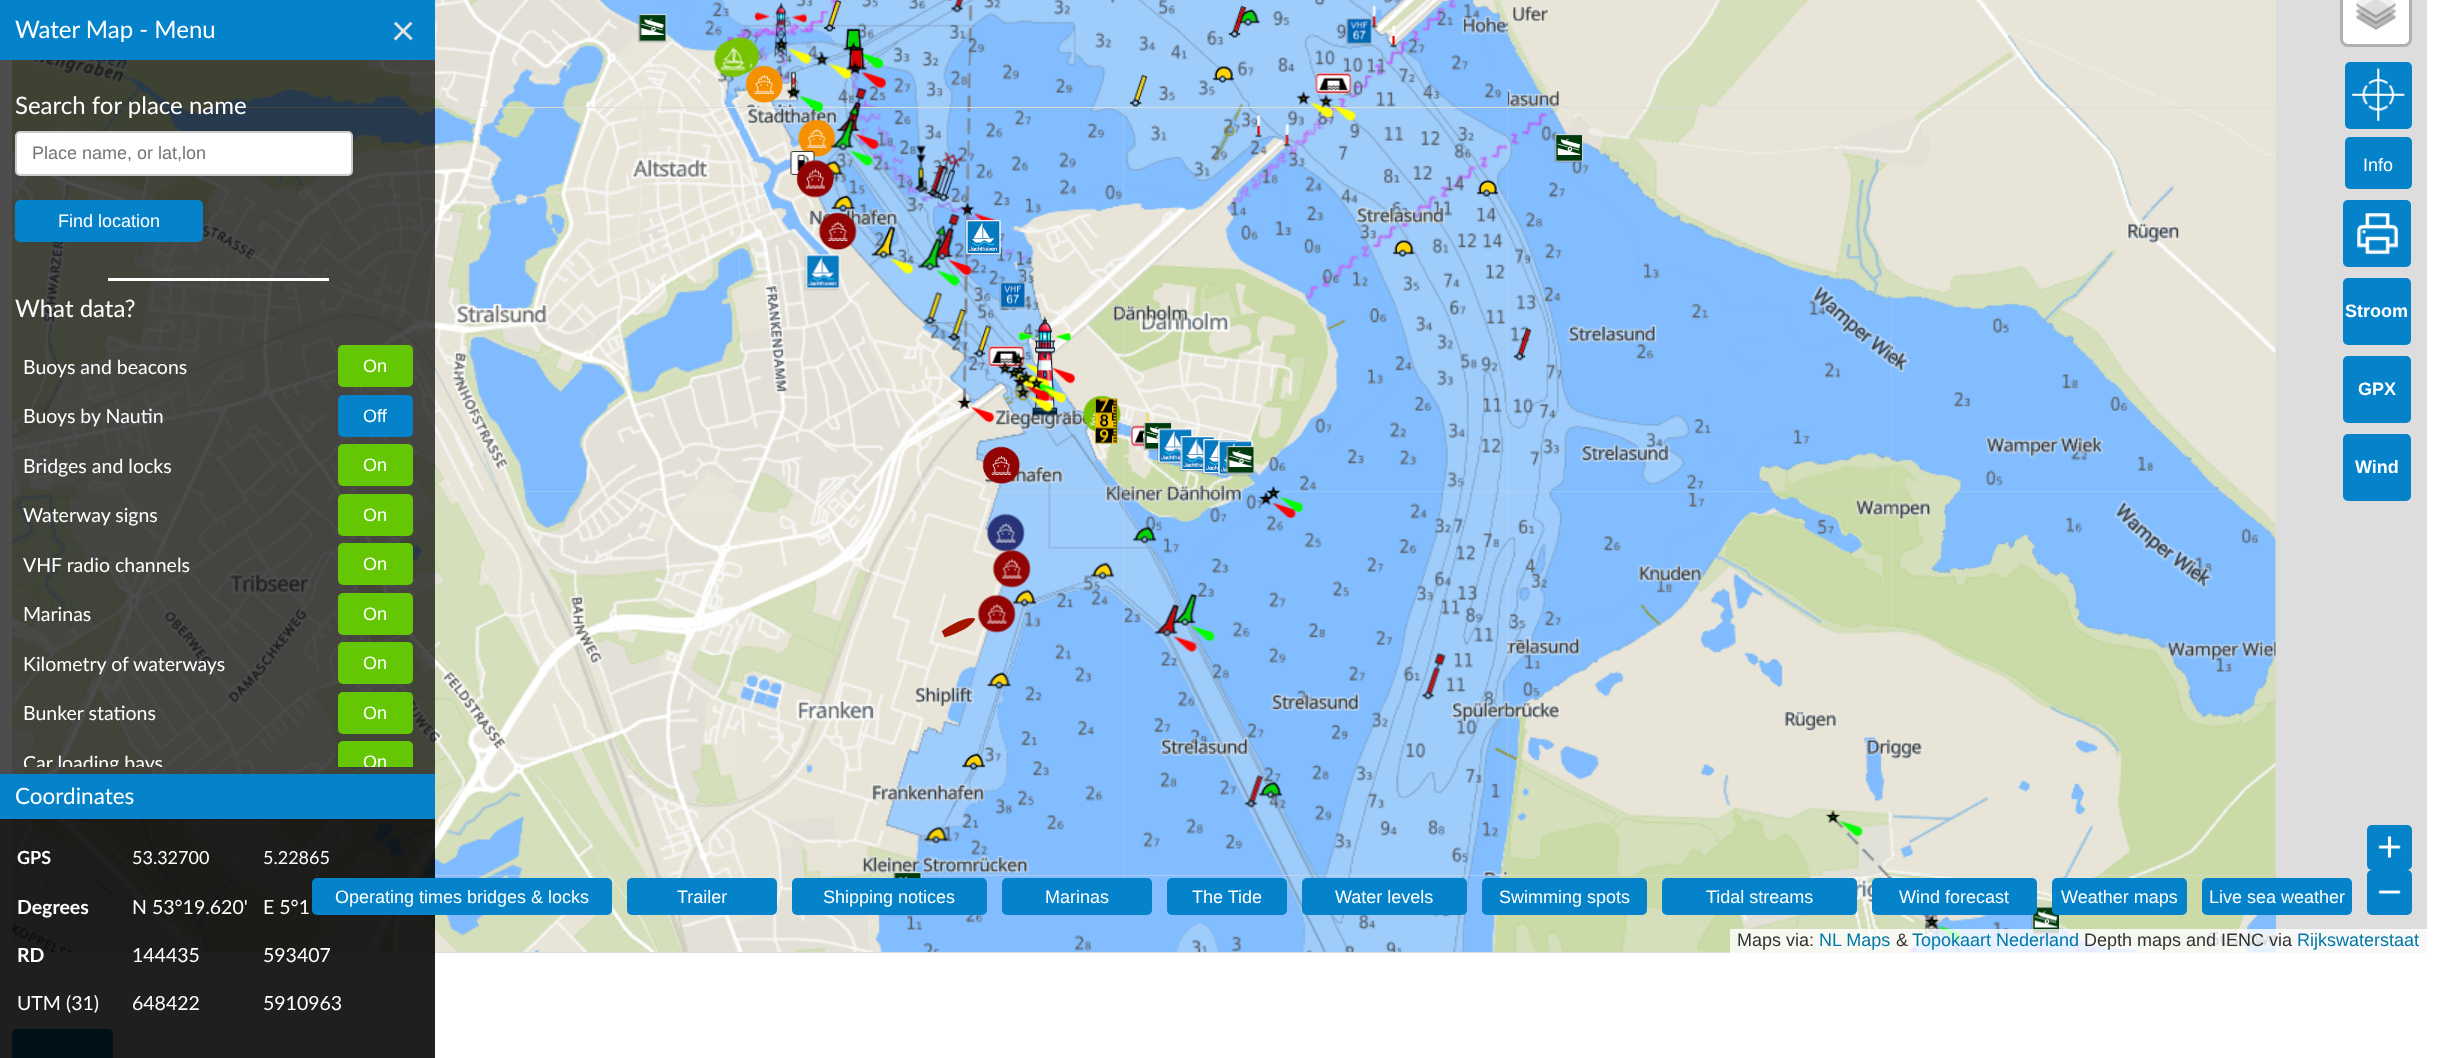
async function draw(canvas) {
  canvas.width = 2439;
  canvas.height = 1058;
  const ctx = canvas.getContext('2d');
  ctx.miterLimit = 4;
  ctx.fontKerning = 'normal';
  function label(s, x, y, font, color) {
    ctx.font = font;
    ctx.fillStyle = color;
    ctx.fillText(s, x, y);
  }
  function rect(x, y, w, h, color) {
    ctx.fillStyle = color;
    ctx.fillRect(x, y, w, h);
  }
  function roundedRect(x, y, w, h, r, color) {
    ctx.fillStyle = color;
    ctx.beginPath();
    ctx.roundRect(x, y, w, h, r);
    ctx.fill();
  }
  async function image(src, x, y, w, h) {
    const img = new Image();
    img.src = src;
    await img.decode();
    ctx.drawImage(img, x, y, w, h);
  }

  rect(0, 0, 2439, 1058, '#fff');
  rect(12, 0, 2415, 953, '#ddd');
  await image('assets/img1.png', 12, 60, 344, 47);
  await image('assets/img2.png', 356, 0, 384, 107);
  await image('assets/img7.png', 12, 108, 344, 384);
  await image('assets/img10.png', 1123, 108, 385, 384);
  await image('assets/img16.png', 1123, 491, 385, 385);
  await image('assets/img9.png', 739, 108, 385, 384);
  await image('assets/img15.png', 739, 491, 385, 385);
  await image('assets/img8.png', 356, 108, 384, 384);
  await image('assets/img13.png', 12, 492, 344, 384);
  await image('assets/img14.png', 356, 491, 384, 385);
  await image('assets/img19.png', 12, 876, 344, 76);
  await image('assets/img20.png', 356, 876, 384, 76);
  roundedRect(12, 1029, 101, 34, 5, '#0583ca');
  rect(0, 60, 435, 998, '#010101b3');
  rect(0, 0, 435, 60, '#0583ca');
  label('Water Map - Menu', 15, 38, '24px Lato', '#fff');
  label('×', 391, 45, '42px Lato', '#e2e2e2');
  label('Search for place name', 15, 114, '24px Lato', '#fff');
  ctx.beginPath();
  ctx.roundRect(16, 132, 336, 43, 4);
  ctx.fill();
  ctx.strokeStyle = '#ccc';
  ctx.lineWidth = 2;
  ctx.stroke();
  label('Place name, or lat,lon', 32, 159, '18px Liberation Sans', '#757575');
  roundedRect(15, 200, 188, 42, 5, '#0583ca');
  label('Find location', 58, 227, '18px Liberation Sans', '#fff');
  rect(108, 278, 221, 3, '#fff');
  label('What data?', 15, 317, '24px Lato', '#fff');
  label('Buoys and beacons', 23, 374, '19.5px Lato', '#fff');
  roundedRect(338, 345, 75, 42, 5, '#65c603');
  label('On', 363, 372, '18px Liberation Sans', '#fff');
  label('Buoys by Nautin', 23, 423, '19.5px Lato', '#fff');
  roundedRect(338, 395, 75, 42, 5, '#0583ca');
  label('Off', 363, 422, '18px Liberation Sans', '#fff');
  label('Bridges and locks', 23, 473, '19.5px Lato', '#fff');
  roundedRect(338, 444, 75, 42, 5, '#65c603');
  label('On', 363, 471, '18px Liberation Sans', '#fff');
  label('Waterway signs', 23, 522, '19.5px Lato', '#fff');
  roundedRect(338, 494, 75, 42, 5, '#65c603');
  label('On', 363, 521, '18px Liberation Sans', '#fff');
  label('VHF radio channels', 23, 572, '19.5px Lato', '#fff');
  roundedRect(338, 543, 75, 42, 5, '#65c603');
  label('On', 363, 570, '18px Liberation Sans', '#fff');
  label('Marinas', 23, 621, '19.5px Lato', '#fff');
  roundedRect(338, 593, 75, 42, 5, '#65c603');
  label('On', 363, 620, '18px Liberation Sans', '#fff');
  label('Kilometry of waterways', 23, 671, '19.5px Lato', '#fff');
  roundedRect(338, 642, 75, 42, 5, '#65c603');
  label('On', 363, 669, '18px Liberation Sans', '#fff');
  label('Bunker stations', 23, 720, '19.5px Lato', '#fff');
  roundedRect(338, 692, 75, 42, 5, '#65c603');
  label('On', 363, 719, '18px Liberation Sans', '#fff');
  ctx.save();
  ctx.beginPath();
  ctx.rect(0, 293, 435, 474);
  ctx.clip();
  label('Car loading bays', 23, 770, '19.5px Lato', '#fff');
  ctx.restore();
  ctx.fillStyle = '#65c603';
  ctx.beginPath();
  ctx.roundRect(338, 741, 75, 26, [5, 5, 0, 0]);
  ctx.fill();
  ctx.save();
  ctx.beginPath();
  ctx.rect(0, 293, 435, 474);
  ctx.clip();
  label('On', 363, 768, '18px Liberation Sans', '#fff');
  ctx.restore();
  rect(0, 774, 435, 45, '#0583ca');
  label('Coordinates', 15, 804, '22.5px Lato', '#fff');
  rect(0, 819, 435, 239, '#01010199');
  label('GPS', 17, 864, 'bold 18px Lato', '#fff');
  label('53.32700', 132, 864, '18px Lato', '#fff');
  label('5.22865', 263, 864, '18px Lato', '#fff');
  label('Degrees', 17, 914, 'bold 19.5px Lato', '#fff');
  label('N 53°19.620\'', 132, 914, '19.5px Lato', '#fff');
  label('E 5°1', 263, 914, '19.5px Lato', '#fff');
  label('RD', 17, 962, 'bold 19.5px Lato', '#fff');
  label('144435', 132, 962, '19.5px Lato', '#fff');
  label('593407', 263, 962, '19.5px Lato', '#fff');
  label('UTM (31)', 17, 1010, '19.5px Lato', '#fff');
  label('648422', 132, 1010, '19.5px Lato', '#fff');
  label('5910963', 263, 1010, '19.5px Lato', '#fff');
  await image('assets/img3.png', 740, 0, 384, 107);
  await image('assets/img4.png', 1124, 0, 384, 107);
  await image('assets/img5.png', 1508, 0, 384, 107);
  await image('assets/img6.png', 1892, 0, 384, 107);
  await image('assets/img11.png', 1507, 108, 385, 384);
  await image('assets/img17.png', 1507, 491, 385, 385);
  await image('assets/img12.png', 1891, 108, 385, 384);
  await image('assets/img18.png', 1891, 491, 385, 385);
  await image('assets/img21.png', 740, 876, 384, 76);
  await image('assets/img22.png', 1124, 876, 384, 76);
  await image('assets/img23.png', 1508, 876, 384, 76);
  await image('assets/img24.png', 1892, 876, 384, 76);
  await image('assets/img39.png', 774, 37, 15, 14);
  await image('assets/img41.png', 780, 43, 31, 22);
  await image('assets/img25.png', 774, 2, 35, 70);
  await image('assets/img26.png', 823, 0, 19, 32);
  await image('assets/img27.png', 947, 0, 5, 1);
  await image('assets/img28.png', 950, 0, 14, 13);
  await image('assets/img35.png', 1236, 9, 25, 17);
  await image('assets/img29.png', 1228, 5, 19, 33);
  await image('assets/img30.png', 1371, 5, 7, 24);
  await image('assets/img31.png', 637, 14, 30, 29);
  await image('assets/img32.png', 725, 36, 34, 39);
  await image('assets/img33.png', 754, 11, 53, 12);
  await image('assets/img34.png', 843, 28, 21, 25);
  await image('assets/img36.png', 1345, 17, 28, 29);
  await image('assets/img37.png', 1390, 25, 7, 23);
  await image('assets/img38.png', 713, 39, 39, 39);
  await image('assets/img43.png', 852, 47, 31, 22);
  await image('assets/img40.png', 846, 42, 15, 14);
  await image('assets/img45.png', 852, 47, 31, 22);
  await image('assets/img44.png', 814, 52, 16, 14);
  await image('assets/img47.png', 820, 58, 32, 22);
  await image('assets/img42.png', 846, 47, 21, 26);
  await image('assets/img46.png', 745, 65, 38, 38);
  await image('assets/img52.png', 856, 67, 30, 22);
  await image('assets/img48.png', 847, 61, 15, 14);
  await image('assets/img49.png', 1212, 65, 23, 18);
  await image('assets/img50.png', 853, 67, 32, 22);
  await image('assets/img51.png', 787, 71, 13, 26);
  await image('assets/img53.png', 1129, 74, 19, 33);
  await image('assets/img54.png', 1315, 73, 37, 21);
  await image('assets/img57.png', 792, 91, 31, 22);
  await image('assets/img55.png', 786, 85, 15, 14);
  await image('assets/img61.png', 836, 101, 26, 33);
  await image('assets/img56.png', 855, 87, 12, 16);
  await image('assets/img58.png', 792, 91, 31, 22);
  await image('assets/img59.png', 1296, 91, 15, 14);
  await image('assets/img62.png', 1302, 97, 31, 22);
  await image('assets/img60.png', 1318, 94, 16, 14);
  await image('assets/img63.png', 1324, 100, 32, 22);
  await image('assets/img65.png', 797, 119, 39, 38);
  await image('assets/img67.png', 847, 128, 32, 22);
  await image('assets/img66.png', 830, 118, 25, 33);
  await image('assets/img64.png', 848, 105, 12, 15);
  await image('assets/img68.png', 1255, 114, 7, 24);
  await image('assets/img69.png', 1283, 123, 8, 24);
  await image('assets/img70.png', 1554, 134, 29, 29);
  await image('assets/img71.png', 790, 151, 25, 24);
  await image('assets/img72.png', 841, 145, 32, 22);
  await image('assets/img79.png', 916, 166, 7, 23);
  await image('assets/img81.png', 914, 167, 14, 26);
  await image('assets/img73.png', 916, 145, 10, 25);
  await image('assets/img78.png', 926, 164, 20, 33);
  await image('assets/img80.png', 929, 165, 20, 34);
  await image('assets/img74.png', 941, 151, 14, 19);
  await image('assets/img82.png', 937, 168, 19, 34);
  await image('assets/img75.png', 949, 154, 14, 19);
  await image('assets/img77.png', 825, 160, 19, 18);
  await image('assets/img76.png', 796, 159, 38, 39);
  await image('assets/img83.png', 1476, 179, 23, 18);
  await image('assets/img84.png', 831, 195, 25, 17);
  await image('assets/img85.png', 960, 202, 15, 14);
  await image('assets/img86.png', 818, 212, 39, 38);
  await image('assets/img92.png', 929, 227, 26, 33);
  await image('assets/img87.png', 948, 213, 12, 16);
  await image('assets/img88.png', 966, 208, 31, 13);
  await image('assets/img89.png', 871, 225, 25, 34);
  await image('assets/img91.png', 965, 219, 36, 37);
  await image('assets/img97.png', 940, 254, 32, 22);
  await image('assets/img93.png', 917, 237, 26, 34);
  await image('assets/img90.png', 935, 225, 11, 15);
  await image('assets/img94.png', 1392, 239, 23, 18);
  await image('assets/img95.png', 804, 254, 37, 37);
  await image('assets/img96.png', 882, 253, 31, 22);
  await image('assets/img98.png', 928, 265, 32, 22);
  await image('assets/img99.png', 923, 291, 20, 34);
  await image('assets/img100.png', 947, 308, 20, 33);
  await image('assets/img101.png', 999, 281, 27, 29);
  await image('assets/img102.png', 973, 324, 19, 34);
  await image('assets/img106.png', 988, 346, 37, 21);
  await image('assets/img107.png', 1011, 352, 15, 14);
  await image('assets/img109.png', 1017, 358, 21, 19);
  await image('assets/img110.png', 1051, 361, 2, 3);
  await image('assets/img114.png', 1052, 367, 23, 17);
  await image('assets/img103.png', 1005, 310, 81, 108);
  await image('assets/img104.png', 1513, 327, 19, 34);
  await image('assets/img105.png', 1018, 331, 53, 11);
  await image('assets/img108.png', 997, 361, 16, 14);
  await image('assets/img113.png', 1003, 367, 32, 22);
  await image('assets/img111.png', 1012, 363, 16, 13);
  await image('assets/img115.png', 1018, 368, 32, 22);
  await image('assets/img112.png', 1007, 366, 14, 13);
  await image('assets/img117.png', 1012, 371, 32, 21);
  await image('assets/img116.png', 1018, 370, 16, 14);
  await image('assets/img119.png', 1024, 376, 32, 22);
  await image('assets/img118.png', 1012, 375, 15, 13);
  await image('assets/img121.png', 1018, 380, 32, 22);
  await image('assets/img120.png', 1029, 376, 15, 14);
  await image('assets/img122.png', 1035, 382, 31, 22);
  await image('assets/img123.png', 1015, 385, 16, 14);
  await image('assets/img124.png', 957, 396, 15, 14);
  await image('assets/img125.png', 1021, 391, 32, 22);
  await image('assets/img126.png', 1082, 395, 39, 37);
  await image('assets/img127.png', 963, 401, 31, 22);
  await image('assets/img128.png', 1095, 398, 23, 46);
  await image('assets/img129.png', 1146, 412, 3, 11);
  await image('assets/img130.png', 1131, 425, 14, 22);
  await image('assets/img131.png', 1143, 422, 29, 29);
  await image('assets/img132.png', 1157, 427, 36, 38);
  await image('assets/img133.png', 1179, 435, 37, 37);
  await image('assets/img134.png', 1202, 438, 36, 37);
  await image('assets/img135.png', 982, 446, 38, 38);
  await image('assets/img136.png', 1217, 440, 36, 37);
  await image('assets/img137.png', 1225, 446, 30, 29);
  await image('assets/img138.png', 1266, 486, 15, 14);
  await image('assets/img140.png', 1272, 491, 31, 22);
  await image('assets/img139.png', 1258, 492, 16, 13);
  await image('assets/img141.png', 1264, 497, 32, 22);
  await image('assets/img142.png', 986, 513, 39, 39);
  await image('assets/img143.png', 1133, 526, 24, 18);
  await image('assets/img144.png', 992, 549, 39, 39);
  await image('assets/img145.png', 1091, 562, 24, 18);
  await image('assets/img146.png', 941, 618, 34, 20);
  await image('assets/img148.png', 1013, 589, 24, 18);
  await image('assets/img147.png', 977, 594, 39, 39);
  await image('assets/img150.png', 1172, 593, 26, 33);
  await image('assets/img149.png', 1154, 603, 26, 34);
  await image('assets/img152.png', 1183, 620, 32, 22);
  await image('assets/img151.png', 1165, 631, 32, 22);
  await image('assets/img155.png', 1421, 666, 20, 34);
  await image('assets/img153.png', 1434, 652, 12, 17);
  await image('assets/img154.png', 987, 672, 25, 17);
  await image('assets/img156.png', 962, 753, 24, 17);
  await image('assets/img158.png', 1259, 781, 24, 18);
  await image('assets/img157.png', 1244, 774, 20, 34);
  await image('assets/img159.png', 1825, 810, 16, 13);
  await image('assets/img160.png', 924, 826, 24, 18);
  await image('assets/img161.png', 1831, 815, 32, 22);
  await image('assets/img162.png', 892, 872, 30, 6);
  await image('assets/img163.png', 881, 915, 33, 1);
  await image('assets/img166.png', 1924, 915, 16, 13);
  await image('assets/img167.png', 1930, 920, 32, 22);
  await image('assets/img164.png', 1913, 915, 47, 36);
  await image('assets/img165.png', 2031, 906, 29, 30);
  roundedRect(2343, -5, 66, 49, 5, '#fff');
  ctx.beginPath();
  ctx.roundRect(2341.5, -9.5, 69, 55, 6.5);
  ctx.strokeStyle = '#00000033';
  ctx.lineWidth = 3;
  ctx.stroke();
  await image('assets/img168.png', 2356, 0, 40, 30);
  roundedRect(2345, 62, 67, 67, 5, '#0583ca');
  await image('assets/img169.png', 2352, 68, 53, 53);
  roundedRect(2345, 137, 67, 52, 5, '#0583ca');
  label('Info', 2363, 171, '18px Liberation Sans', '#fff');
  rect(1730, 929, 697, 24, '#ffffffcc');
  label('Maps via:', 1737, 946, '18px Liberation Sans', '#333');
  label('NL Maps', 1819, 946, '18px Liberation Sans', '#0078a8');
  label('&', 1896, 946, '18px Liberation Sans', '#333');
  label('Topokaart Nederland', 1912, 946, '18px Liberation Sans', '#0078a8');
  label('Depth maps and IENC via', 2084, 946, '18px Liberation Sans', '#333');
  label('Rijkswaterstaat', 2297, 946, '18px Liberation Sans', '#0078a8');
  roundedRect(2343, 200, 68, 67, 5, '#0583ca');
  await image('assets/img170.png', 2357, 213, 42, 42);
  roundedRect(2343, 278, 68, 67, 5, '#0583ca');
  label('Stroom', 2345, 317, 'bold 18px Liberation Sans', '#fff');
  roundedRect(2343, 356, 68, 67, 5, '#0583ca');
  label('GPX', 2358, 395, 'bold 18px Liberation Sans', '#fff');
  roundedRect(2343, 434, 68, 67, 5, '#0583ca');
  label('Wind', 2355, 473, 'bold 18px Liberation Sans', '#fff');
  roundedRect(2367, 825, 45, 45, 5, '#0583ca');
  await image('assets/img171.png', 2378, 836, 23, 22);
  roundedRect(2367, 870, 45, 45, 5, '#0583ca');
  await image('assets/img172.png', 2378, 890, 23, 4);
  roundedRect(312, 878, 300, 37, 5, '#0583ca');
  label('Operating times bridges & locks', 335, 903, '18px Liberation Sans', '#fff');
  roundedRect(627, 878, 150, 37, 5, '#0583ca');
  label('Trailer', 677, 903, '18px Liberation Sans', '#fff');
  roundedRect(792, 878, 195, 37, 5, '#0583ca');
  label('Shipping notices', 823, 903, '18px Liberation Sans', '#fff');
  roundedRect(1002, 878, 150, 37, 5, '#0583ca');
  label('Marinas', 1045, 903, '18px Liberation Sans', '#fff');
  roundedRect(1167, 878, 120, 37, 5, '#0583ca');
  label('The Tide', 1192, 903, '18px Liberation Sans', '#fff');
  roundedRect(1302, 878, 165, 37, 5, '#0583ca');
  label('Water levels', 1335, 903, '18px Liberation Sans', '#fff');
  roundedRect(1482, 878, 165, 37, 5, '#0583ca');
  label('Swimming spots', 1499, 903, '18px Liberation Sans', '#fff');
  roundedRect(1662, 878, 195, 37, 5, '#0583ca');
  label('Tidal streams', 1706, 903, '18px Liberation Sans', '#fff');
  roundedRect(1872, 878, 165, 37, 5, '#0583ca');
  label('Wind forecast', 1899, 903, '18px Liberation Sans', '#fff');
  roundedRect(2052, 878, 135, 37, 5, '#0583ca');
  label('Weather maps', 2061, 903, '18px Liberation Sans', '#fff');
  roundedRect(2202, 878, 150, 37, 5, '#0583ca');
  label('Live sea weather', 2209, 903, '18px Liberation Sans', '#fff');
}

draw(document.querySelector('canvas'));
